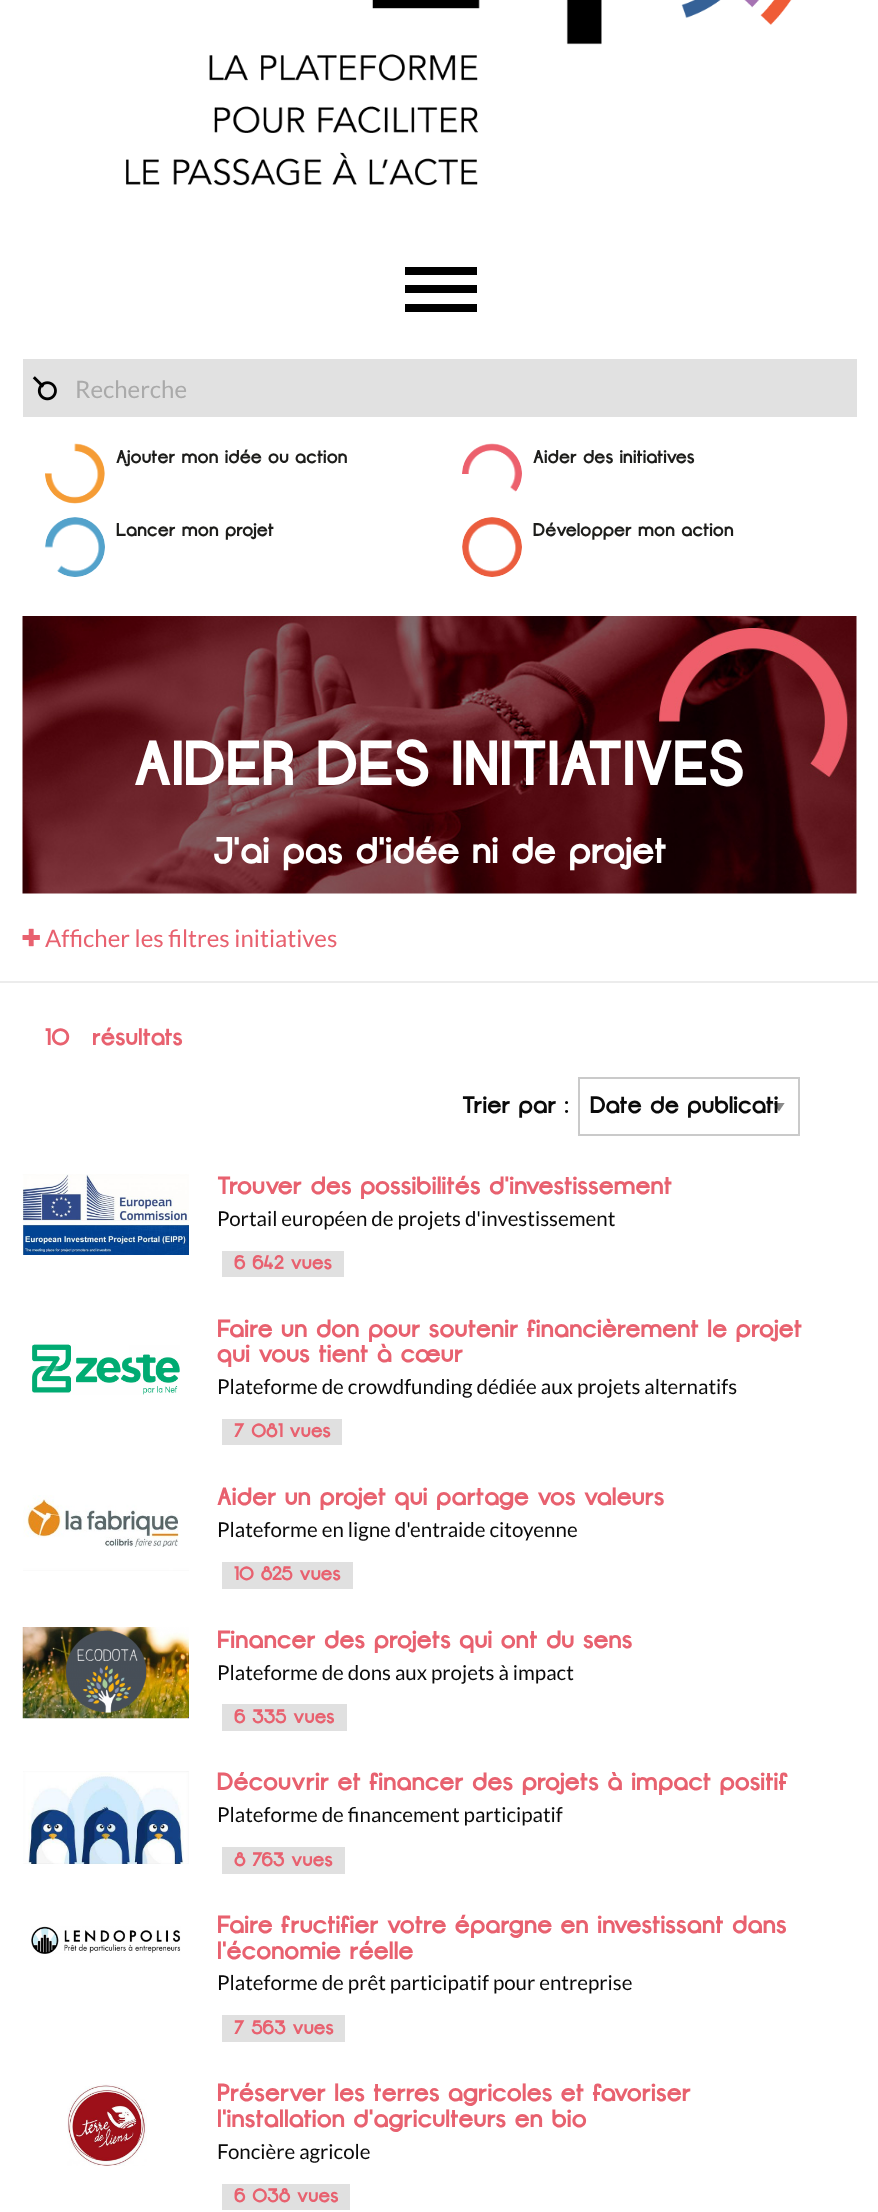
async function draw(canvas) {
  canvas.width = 878;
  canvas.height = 2212;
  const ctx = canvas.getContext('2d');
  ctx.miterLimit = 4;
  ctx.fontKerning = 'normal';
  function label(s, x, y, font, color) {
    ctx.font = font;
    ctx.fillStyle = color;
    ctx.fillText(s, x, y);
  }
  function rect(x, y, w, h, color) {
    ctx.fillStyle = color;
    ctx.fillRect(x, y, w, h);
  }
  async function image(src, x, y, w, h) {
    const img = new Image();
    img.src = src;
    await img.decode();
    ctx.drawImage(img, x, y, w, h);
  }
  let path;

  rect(0, 0, 878, 2212, '#fff');
  await image('assets/img1.png', 125, 0, 667, 186);
  rect(405, 267, 72, 8, '#000');
  rect(405, 285, 72, 8, '#000');
  rect(405, 304, 72, 8, '#000');
  rect(23, 359, 834, 58, '#e1e1e1');
  await image('assets/img2.png', 32, 376, 25, 25);
  label('Recherche', 75, 398, '24px Lato', '#aaa');
  await image('assets/img3.png', 45, 443, 60, 61);
  label('Ajouter mon idée ou action', 116, 463, 'bold 18.5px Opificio', '#1d1d1b');
  await image('assets/img4.png', 462, 443, 60, 49);
  label('Aider des initiatives', 533, 463, 'bold 18.5px Opificio', '#1d1d1b');
  await image('assets/img5.png', 45, 517, 60, 60);
  label('Lancer mon projet', 116, 536, 'bold 18.5px Opificio', '#1d1d1b');
  await image('assets/img6.png', 462, 517, 60, 60);
  label('Développer mon action', 533, 536, 'bold 18.5px Opificio', '#1d1d1b');
  await image('assets/img7.png', 22, 616, 835, 278);
  label('AIDER DES INITIATIVES', 134, 785, 'bold 63.4px Opificio', '#fff');
  label('J\'ai pas d\'idée ni de projet', 213, 863, 'bold 37px Opificio', '#fff');
  await image('assets/img8.png', 22, 928, 18, 19);
  label('Afficher les filtres initiatives', 45, 947, '24px Lato', '#e8616f');
  rect(0, 981, 878, 2, '#ececec');
  label('10', 45, 1045, 'bold 24px Opificio', '#e8616f');
  label('résultats', 92, 1045, 'bold 24px Opificio', '#e8616f');
  label('Trier par :', 462, 1113, 'bold 24px Opificio', '#0a0a0a');
  ctx.save();
  ctx.beginPath();
  ctx.rect(773, 1103, 13, 9);
  ctx.clip();
  ctx.fillStyle = '#8a8a8a';
  path = new Path2D('M773 1102.5H785L779 1111.5Z');
  ctx.fill(path);
  ctx.restore();
  ctx.strokeStyle = '#cacaca';
  ctx.lineWidth = 2;
  ctx.strokeRect(579, 1078, 220, 57);
  label('Date de publicati', 590, 1113, 'bold 24px Opificio', '#0a0a0a');
  await image('assets/img9.png', 22, 1174, 167, 81);
  label('Trouver des possibilités d\'investissement', 217, 1194, 'bold 25.1px Opificio', '#e8616f');
  label('Portail européen de projets d\'investissement', 217, 1226, '20.5px Lato', '#0a0a0a');
  rect(222, 1251, 122, 26, '#e0e0e0');
  label('6 642 vues', 234, 1269, 'bold 19.5px Opificio', '#e8616f');
  await image('assets/img10.png', 32, 1344, 148, 51);
  label('Faire un don pour soutenir financièrement le projet', 217, 1337, 'bold 25.1px Opificio', '#e8616f');
  label('qui vous tient à cœur', 217, 1362, 'bold 25.1px Opificio', '#e8616f');
  label('Plateforme de crowdfunding dédiée aux projets alternatifs', 217, 1394, '20.5px Lato', '#0a0a0a');
  rect(222, 1419, 120, 26, '#e0e0e0');
  label('7 081 vues', 234, 1437, 'bold 19.5px Opificio', '#e8616f');
  await image('assets/img11.png', 23, 1495, 166, 76);
  label('Aider un projet qui partage vos valeurs', 217, 1505, 'bold 25.1px Opificio', '#e8616f');
  label('Plateforme en ligne d\'entraide citoyenne', 217, 1537, '20.5px Lato', '#0a0a0a');
  rect(222, 1562, 131, 27, '#e0e0e0');
  label('10 825 vues', 234, 1580, 'bold 19.5px Opificio', '#e8616f');
  await image('assets/img12.png', 22, 1627, 167, 92);
  label('Financer des projets qui ont du sens', 217, 1648, 'bold 25.1px Opificio', '#e8616f');
  label('Plateforme de dons aux projets à impact', 217, 1680, '20.5px Lato', '#0a0a0a');
  rect(222, 1704, 125, 27, '#e0e0e0');
  label('6 335 vues', 234, 1723, 'bold 19.5px Opificio', '#e8616f');
  await image('assets/img13.png', 23, 1771, 166, 93);
  ctx.save();
  ctx.beginPath();
  ctx.rect(23, 1772, 834, 114);
  ctx.clip();
  label('Découvrir et financer des projets à impact positif', 217, 1790, 'bold 25.1px Opificio', '#e8616f');
  ctx.restore();
  label('Plateforme de financement participatif', 217, 1822, '20.5px Lato', '#0a0a0a');
  rect(222, 1847, 123, 27, '#e0e0e0');
  label('8 763 vues', 234, 1866, 'bold 19.5px Opificio', '#e8616f');
  await image('assets/img14.png', 31, 1926, 150, 28);
  label('Faire fructifier votre épargne en investissant dans', 217, 1933, 'bold 25.1px Opificio', '#e8616f');
  label('l\'économie réelle', 217, 1959, 'bold 25.1px Opificio', '#e8616f');
  label('Plateforme de prêt participatif pour entreprise', 217, 1990, '20.5px Lato', '#0a0a0a');
  rect(222, 2015, 123, 27, '#e0e0e0');
  label('7 563 vues', 234, 2034, 'bold 19.5px Opificio', '#e8616f');
  await image('assets/img15.png', 67, 2084, 80, 82);
  label('Préserver les terres agricoles et favoriser', 217, 2101, 'bold 25.1px Opificio', '#e8616f');
  label('l\'installation d\'agriculteurs en bio', 217, 2127, 'bold 25.1px Opificio', '#e8616f');
  label('Foncière agricole', 217, 2159, '20.5px Lato', '#0a0a0a');
  rect(222, 2184, 128, 26, '#e0e0e0');
  label('6 038 vues', 234, 2202, 'bold 19.5px Opificio', '#e8616f');
}

draw(document.querySelector('canvas'));
